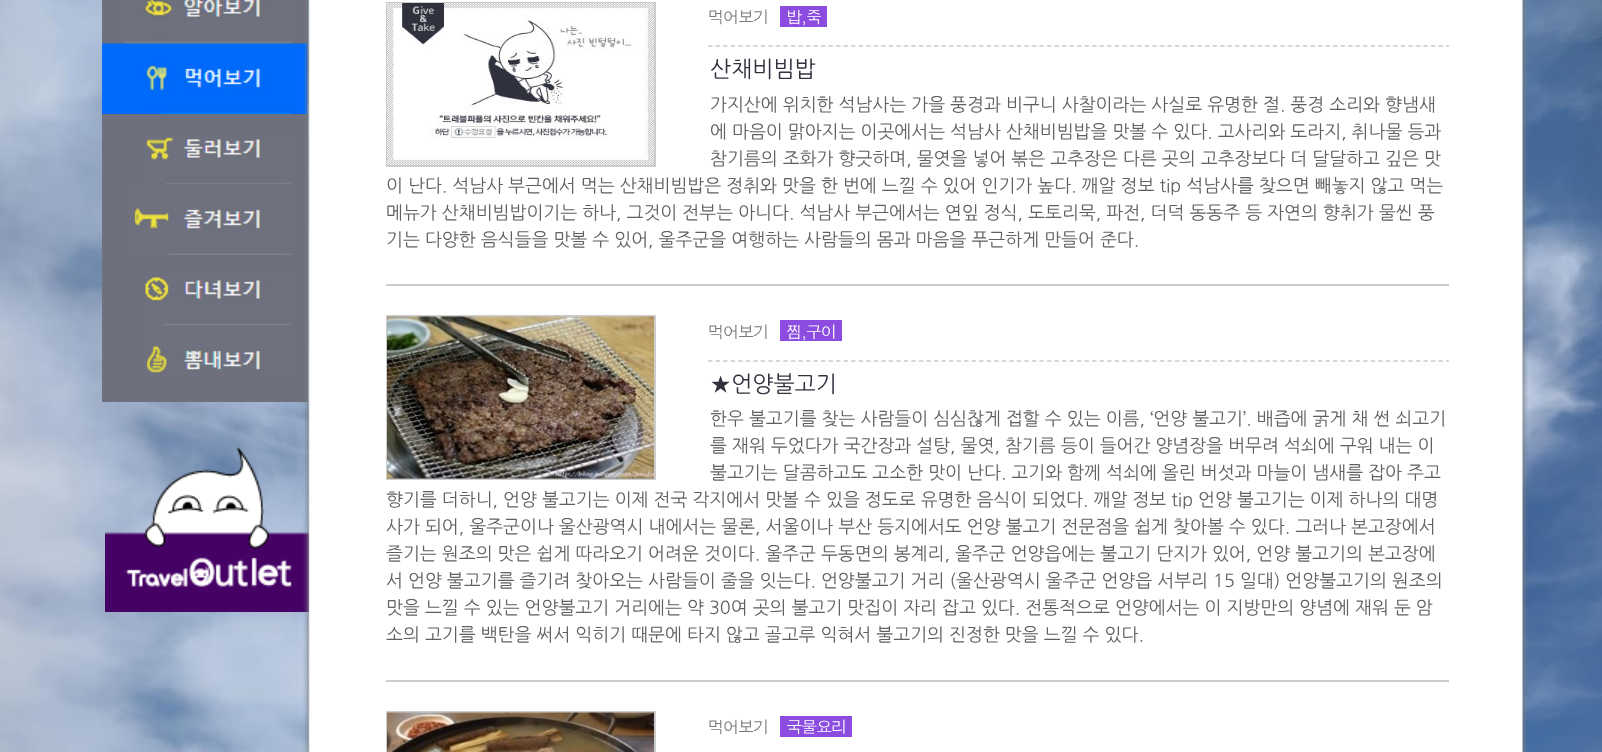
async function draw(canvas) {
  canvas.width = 1602;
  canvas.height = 752;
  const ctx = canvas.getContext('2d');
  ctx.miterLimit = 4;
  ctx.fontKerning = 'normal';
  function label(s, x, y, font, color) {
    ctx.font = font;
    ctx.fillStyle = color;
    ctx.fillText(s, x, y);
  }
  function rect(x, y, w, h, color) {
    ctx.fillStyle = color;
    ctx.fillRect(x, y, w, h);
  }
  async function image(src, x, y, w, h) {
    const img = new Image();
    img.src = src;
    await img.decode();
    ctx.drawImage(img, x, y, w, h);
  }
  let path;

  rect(0, 0, 1602, 752, '#fff');
  await image('assets/img1.png', 0, 0, 1602, 752);
  rect(102, 0, 206, 44, '#6e717d');
  await image('assets/img2.png', 124, 0, 167, 44);
  await image('assets/img3.png', 102, 43, 206, 71);
  rect(102, 114, 206, 288, '#6e717d');
  await image('assets/img4.png', 146, 137, 145, 48);
  await image('assets/img5.png', 134, 184, 157, 71);
  await image('assets/img6.png', 144, 276, 147, 50);
  await image('assets/img7.png', 146, 325, 144, 48);
  await image('assets/img8.png', 105, 447, 205, 165);
  await image('assets/img9.png', 303, 0, 1225, 752);
  rect(386, 284, 1063, 2, '#ccc');
  ctx.save();
  ctx.beginPath();
  ctx.rect(386, 2, 1063, 282);
  ctx.clip();
  path = new Path2D('M708 46H1450.5');
  ctx.strokeStyle = '#ccc';
  ctx.lineWidth = 1.5;
  ctx.setLineDash([4.5, 3.03]);
  ctx.stroke(path);
  ctx.restore();
  ctx.letterSpacing = '-1.5px';
  label('먹어보기', 708, 23, '16.5px Dotum', '#78797d');
  rect(780, 6, 47, 21, '#8c4ce0');
  label('밥,죽', 786, 23, '16.5px Dotum', '#fff');
  ctx.strokeStyle = '#ccc';
  ctx.lineWidth = 2;
  ctx.strokeRect(387, 3, 268, 163);
  await image('assets/img10.png', 387, 3, 267, 162);
  ctx.letterSpacing = '0px';
  label('산채비빔밥', 710, 77, '22.5px NanumGothic', '#30333e');
  label('가지산에 위치한 석남사는 가을 풍경과 비구니 사찰이라는 사실로 유명한 절. 풍경 소리와 향냄새', 710, 111, '18px NanumGothic', '#606060');
  label('에 마음이 맑아지는 이곳에서는 석남사 산채비빔밥을 맛볼 수 있다. 고사리와 도라지, 취나물 등과', 710, 138, '18px NanumGothic', '#606060');
  label('참기름의 조화가 향긋하며, 물엿을 넣어 볶은 고추장은 다른 곳의 고추장보다 더 달달하고 깊은 맛', 710, 165, '18px NanumGothic', '#606060');
  label('이 난다. 석남사 부근에서 먹는 산채비빔밥은 정취와 맛을 한 번에 느낄 수 있어 인기가 높다. 깨알 정보 tip 석남사를 찾으면 빼놓지 않고 먹는', 386, 192, '18px NanumGothic', '#606060');
  label('메뉴가 산채비빔밥이기는 하나, 그것이 전부는 아니다. 석남사 부근에서는 연잎 정식, 도토리묵, 파전, 더덕 동동주 등 자연의 향취가 물씬 풍', 386, 219, '18px NanumGothic', '#606060');
  label('기는 다양한 음식들을 맛볼 수 있어, 울주군을 여행하는 사람들의 몸과 마음을 푸근하게 만들어 준다.', 386, 246, '18px NanumGothic', '#606060');
  rect(386, 680, 1063, 2, '#ccc');
  ctx.save();
  ctx.beginPath();
  ctx.rect(386, 315, 1063, 365);
  ctx.clip();
  path = new Path2D('M708 361H1450.5');
  ctx.lineWidth = 1.5;
  ctx.setLineDash([4.5, 3.03]);
  ctx.stroke(path);
  ctx.restore();
  ctx.letterSpacing = '-1.5px';
  label('먹어보기', 708, 338, '16.5px Dotum', '#78797d');
  rect(780, 320, 62, 21, '#8c4ce0');
  label('찜,구이', 786, 338, '16.5px Dotum', '#fff');
  ctx.strokeRect(387, 316, 268, 163);
  await image('assets/img11.png', 387, 316, 267, 163);
  ctx.letterSpacing = '0px';
  label('★언양불고기', 710, 392, '22.5px NanumGothic', '#30333e');
  label('한우 불고기를 찾는 사람들이 심심찮게 접할 수 있는 이름, ‘언양 불고기’. 배즙에 굵게 채 썬 쇠고기', 710, 425, '18px NanumGothic', '#606060');
  label('를 재워 두었다가 국간장과 설탕, 물엿, 참기름 등이 들어간 양념장을 버무려 석쇠에 구워 내는 이', 710, 452, '18px NanumGothic', '#606060');
  label('불고기는 달콤하고도 고소한 맛이 난다. 고기와 함께 석쇠에 올린 버섯과 마늘이 냄새를 잡아 주고', 710, 479, '18px NanumGothic', '#606060');
  label('향기를 더하니, 언양 불고기는 이제 전국 각지에서 맛볼 수 있을 정도로 유명한 음식이 되었다. 깨알 정보 tip 언양 불고기는 이제 하나의 대명', 386, 506, '18px NanumGothic', '#606060');
  label('사가 되어, 울주군이나 울산광역시 내에서는 물론, 서울이나 부산 등지에서도 언양 불고기 전문점을 쉽게 찾아볼 수 있다. 그러나 본고장에서', 386, 533, '18px NanumGothic', '#606060');
  label('즐기는 원조의 맛은 쉽게 따라오기 어려운 것이다. 울주군 두동면의 봉계리, 울주군 언양읍에는 불고기 단지가 있어, 언양 불고기의 본고장에', 386, 560, '18px NanumGothic', '#606060');
  label('서 언양 불고기를 즐기려 찾아오는 사람들이 줄을 잇는다. 언양불고기 거리 (울산광역시 울주군 언양읍 서부리 15 일대) 언양불고기의 원조의', 386, 587, '18px NanumGothic', '#606060');
  label('맛을 느낄 수 있는 언양불고기 거리에는 약 30여 곳의 불고기 맛집이 자리 잡고 있다. 전통적으로 언양에서는 이 지방만의 양념에 재워 둔 암', 386, 614, '18px NanumGothic', '#606060');
  label('소의 고기를 백탄을 써서 익히기 때문에 타지 않고 골고루 익혀서 불고기의 진정한 맛을 느낄 수 있다.', 386, 641, '18px NanumGothic', '#606060');
  ctx.strokeRect(387, 712, 268, 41);
  await image('assets/img12.png', 387, 712, 267, 40);
  ctx.letterSpacing = '-1.5px';
  label('먹어보기', 708, 733, '16.5px Dotum', '#78797d');
  rect(780, 716, 72, 21, '#8c4ce0');
  label('국물요리', 786, 733, '16.5px Dotum', '#fff');
}

draw(document.querySelector('canvas'));
